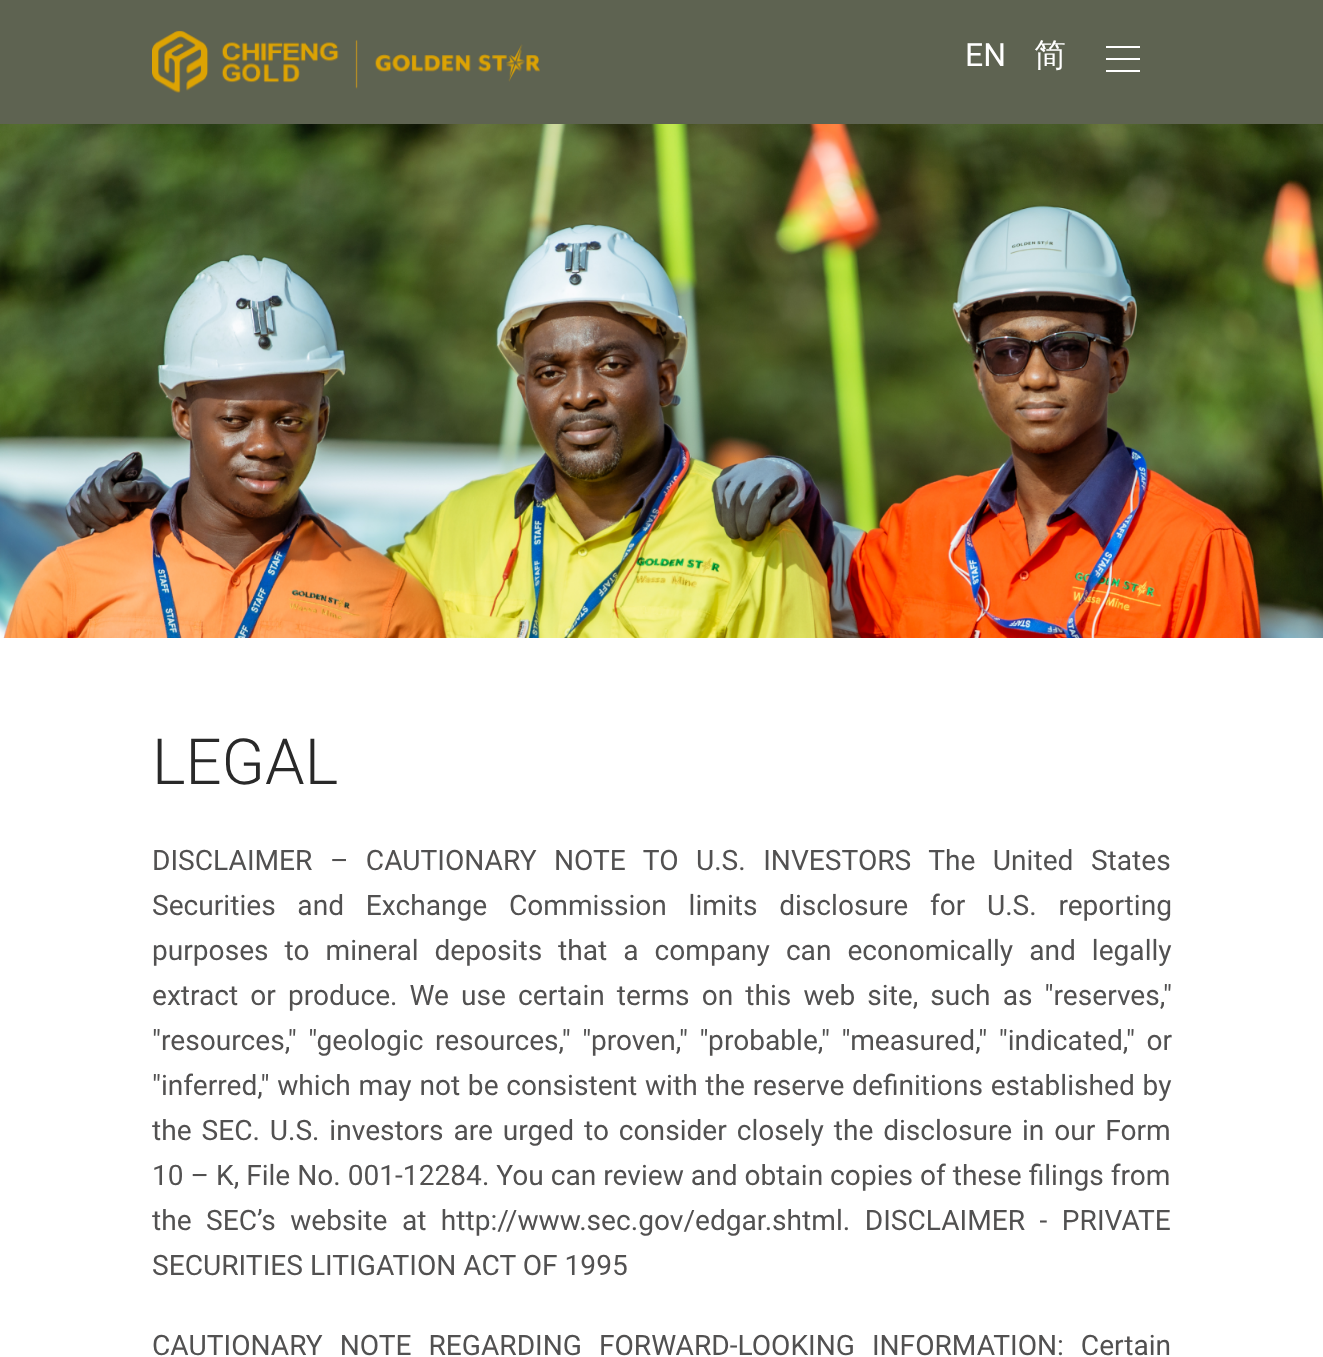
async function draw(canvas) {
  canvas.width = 1323;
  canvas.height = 1357;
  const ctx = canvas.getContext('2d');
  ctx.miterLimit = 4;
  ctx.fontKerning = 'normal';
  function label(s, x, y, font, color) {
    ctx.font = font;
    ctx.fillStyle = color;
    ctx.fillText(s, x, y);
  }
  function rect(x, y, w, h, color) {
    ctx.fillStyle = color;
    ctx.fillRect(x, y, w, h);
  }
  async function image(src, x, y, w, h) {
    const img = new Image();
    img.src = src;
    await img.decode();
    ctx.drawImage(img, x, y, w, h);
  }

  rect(0, 0, 1323, 1357, '#fff');
  rect(0, 0, 1323, 124, '#5e6351');
  await image('assets/img1.png', 152, 30, 388, 63);
  label('EN', 965, 66, '32px Roboto', '#fff');
  label('简', 1034, 66, '500 32px WenQuanYi Zen Hei', '#fff');
  rect(1106, 46, 34, 2, '#fff');
  rect(1106, 58, 34, 2, '#fff');
  rect(1106, 70, 34, 2, '#fff');
  await image('assets/img2.png', 0, 124, 1323, 514);
  label('LEGAL', 152, 784, '300 63.5px Roboto', '#292929');
  ctx.wordSpacing = '10.5px';
  label('DISCLAIMER – CAUTIONARY NOTE TO U.S. INVESTORS The United States', 152, 870, '28.15px Roboto', '#525151');
  ctx.wordSpacing = '14.75px';
  label('Securities and Exchange Commission limits disclosure for U.S. reporting', 152, 915, '28.15px Roboto', '#525151');
  ctx.wordSpacing = '9px';
  label('purposes to mineral deposits that a company can economically and legally', 152, 960, '28.15px Roboto', '#525151');
  ctx.wordSpacing = '5.1px';
  label('extract or produce. We use certain terms on this web site, such as "reserves,"', 152, 1005, '28.15px Roboto', '#525151');
  ctx.wordSpacing = '4.5px';
  label('"resources," "geologic resources," "proven," "probable," "measured," "indicated," or', 152, 1050, '28.15px Roboto', '#525151');
  ctx.wordSpacing = '0.75px';
  label('"inferred," which may not be consistent with the reserve definitions established by', 152, 1095, '28.15px Roboto', '#525151');
  ctx.wordSpacing = '2.9px';
  label('the SEC. U.S. investors are urged to consider closely the disclosure in our Form', 152, 1140, '28.15px Roboto', '#525151');
  ctx.wordSpacing = '0px';
  label('10 – K, File No. 001-12284. You can review and obtain copies of these filings from', 152, 1185, '28.15px Roboto', '#525151');
  ctx.wordSpacing = '7.5px';
  label('the SEC’s website at http://www.sec.gov/edgar.shtml. DISCLAIMER - PRIVATE', 152, 1230, '28.15px Roboto', '#525151');
  ctx.wordSpacing = '0px';
  label('SECURITIES LITIGATION ACT OF 1995', 152, 1275, '28.15px Roboto', '#525151');
  ctx.wordSpacing = '10px';
  label('CAUTIONARY NOTE REGARDING FORWARD-LOOKING INFORMATION: Certain', 152, 1355, '28.15px Roboto', '#525151');
}

draw(document.querySelector('canvas'));
